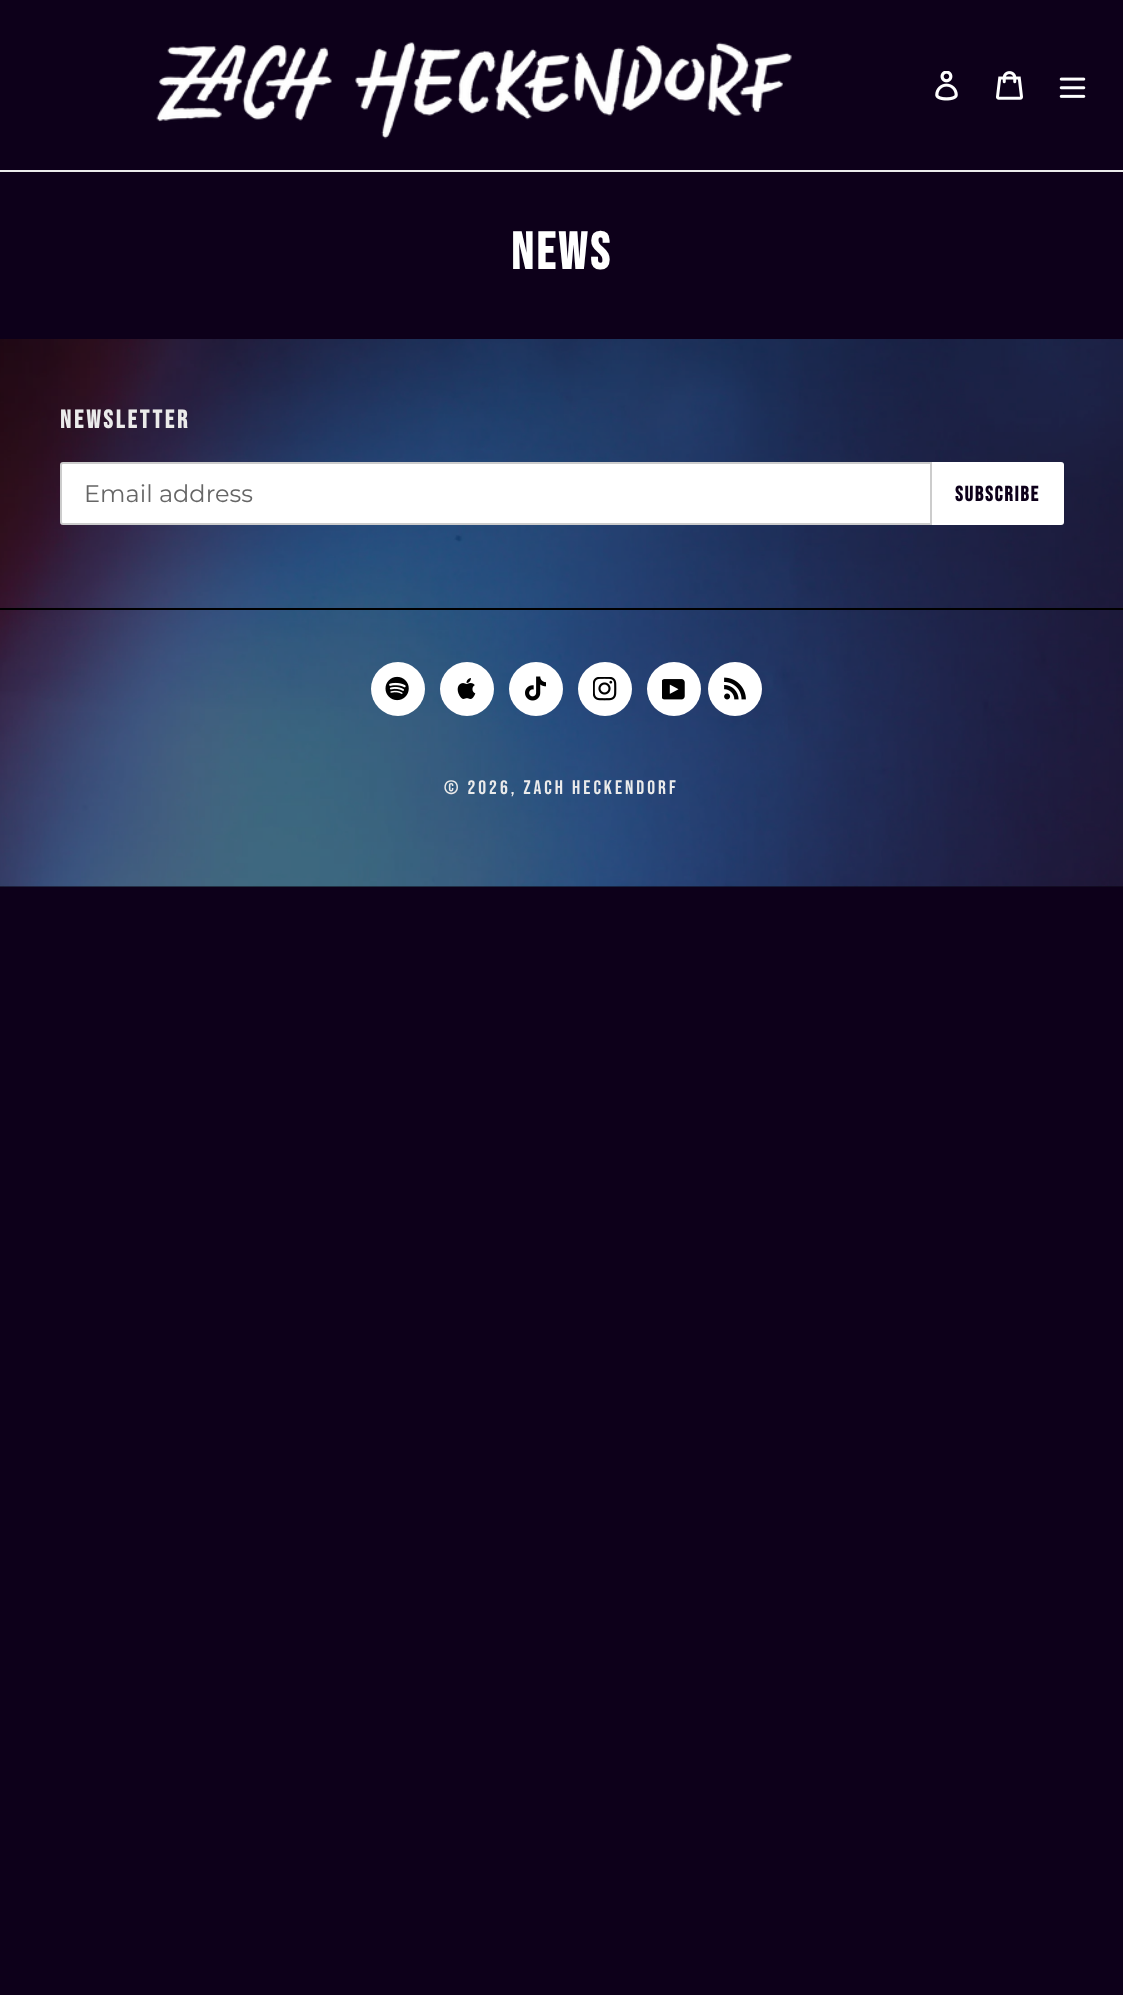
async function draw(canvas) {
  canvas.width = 1123;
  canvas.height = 1995;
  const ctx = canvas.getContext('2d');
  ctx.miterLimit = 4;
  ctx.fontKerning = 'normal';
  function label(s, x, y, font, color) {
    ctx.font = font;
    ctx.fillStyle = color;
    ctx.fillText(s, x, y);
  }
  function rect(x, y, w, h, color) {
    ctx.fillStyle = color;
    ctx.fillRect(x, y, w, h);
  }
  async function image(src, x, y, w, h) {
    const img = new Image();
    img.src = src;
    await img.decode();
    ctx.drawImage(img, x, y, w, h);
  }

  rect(0, 0, 1123, 1995, '#0d001a');
  rect(0, 886, 1123, 1, '#07000d');
  rect(0, 170, 1123, 2, '#ebebeb');
  await image('assets/img1.png', 156, 42, 636, 97);
  await image('assets/img2.png', 935, 71, 23, 30);
  await image('assets/img3.png', 996, 71, 27, 29);
  await image('assets/img4.png', 1059, 77, 27, 21);
  ctx.letterSpacing = '3px';
  label('News', 511, 269, 'bold 52px Bebas Neue', '#fff');
  await image('assets/img5.png', 0, 339, 1123, 548);
  label('Newsletter', 60, 428, 'bold 25.5px Bebas Neue', '#ebebeb');
  ctx.fillStyle = '#fff';
  ctx.beginPath();
  ctx.roundRect(61, 463, 870, 61, [2, 0, 0, 2]);
  ctx.fill();
  ctx.strokeStyle = '#ccc';
  ctx.lineWidth = 2;
  ctx.stroke();
  ctx.letterSpacing = '0px';
  label('Email address', 84, 502, '24px Montserrat', '#666');
  ctx.fillStyle = '#fff';
  ctx.beginPath();
  ctx.roundRect(932, 462, 132, 63, [0, 3, 3, 0]);
  ctx.fill();
  ctx.letterSpacing = '1.75px';
  label('SUBSCRIBE', 955, 501, 'bold 21px Bebas Neue', '#0d001a');
  rect(0, 608, 1123, 2, '#000');
  ctx.fillStyle = '#fff';
  ctx.beginPath();
  ctx.arc(398, 689, 27, 0, 2 * Math.PI);
  ctx.fill();
  await image('assets/img6.png', 385, 676, 24, 25);
  ctx.beginPath();
  ctx.arc(467, 689, 27, 0, 2 * Math.PI);
  ctx.fill();
  await image('assets/img7.png', 457, 678, 19, 21);
  ctx.beginPath();
  ctx.arc(536, 689, 27, 0, 2 * Math.PI);
  ctx.fill();
  await image('assets/img8.png', 525, 676, 21, 25);
  ctx.beginPath();
  ctx.arc(605, 689, 27, 0, 2 * Math.PI);
  ctx.fill();
  await image('assets/img9.png', 593, 677, 24, 24);
  ctx.beginPath();
  ctx.arc(674, 689, 27, 0, 2 * Math.PI);
  ctx.fill();
  await image('assets/img10.png', 662, 679, 23, 21);
  ctx.beginPath();
  ctx.arc(735, 689, 27, 0, 2 * Math.PI);
  ctx.fill();
  await image('assets/img11.png', 724, 677, 22, 23);
  ctx.letterSpacing = '3px';
  label('© 2026, Zach Heckendorf', 444, 794, '19.5px Bebas Neue', '#ebebeb');
}

draw(document.querySelector('canvas'));
